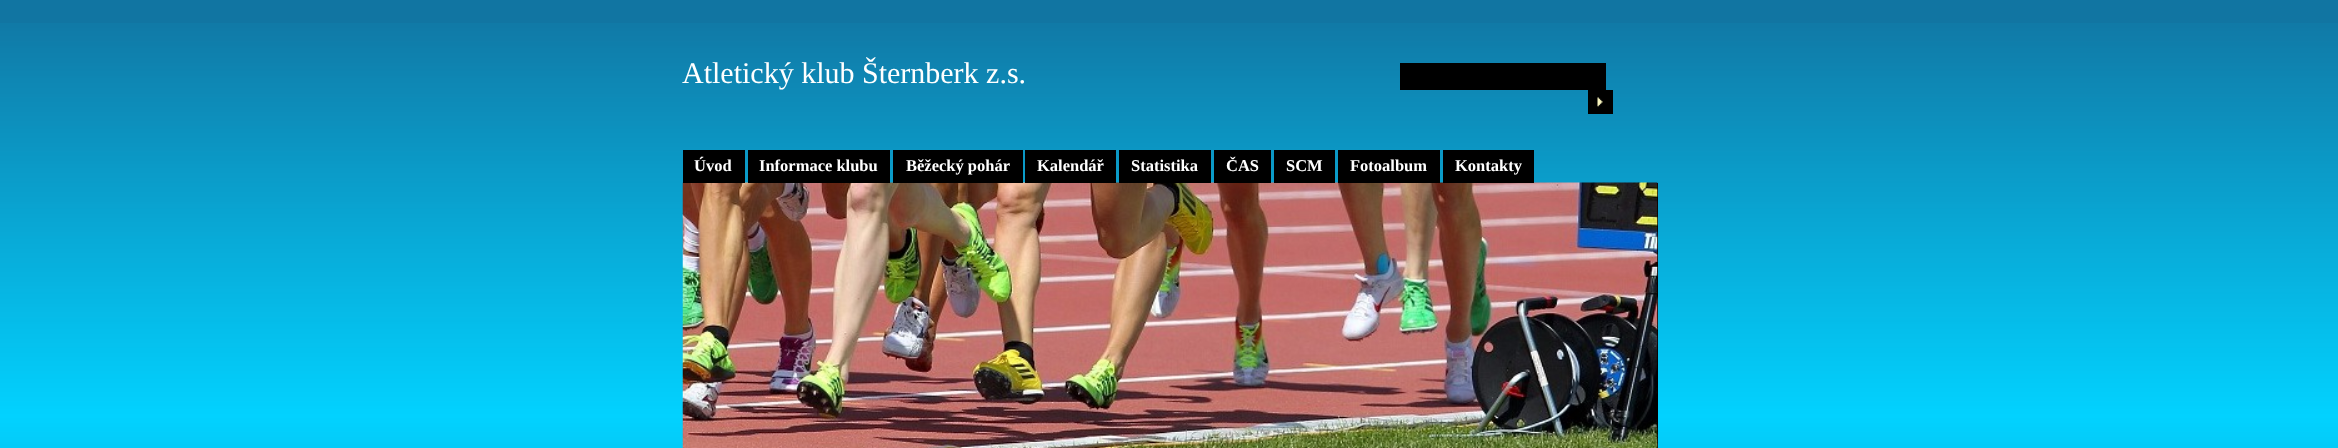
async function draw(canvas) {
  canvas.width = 2338;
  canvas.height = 448;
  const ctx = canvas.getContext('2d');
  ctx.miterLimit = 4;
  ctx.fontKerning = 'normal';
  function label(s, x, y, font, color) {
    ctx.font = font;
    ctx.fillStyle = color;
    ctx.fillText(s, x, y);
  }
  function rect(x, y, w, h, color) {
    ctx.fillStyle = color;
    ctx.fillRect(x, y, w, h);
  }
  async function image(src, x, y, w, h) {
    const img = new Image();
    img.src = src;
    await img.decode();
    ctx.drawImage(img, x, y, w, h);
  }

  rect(0, 0, 2338, 448, '#1175a2');
  await image('assets/img1.png', 0, 23, 2338, 425);
  rect(1657, 183, 1, 265, '#000');
  await image('assets/img2.png', 682, 182, 976, 266);
  label('Atletický klub Šternberk z.s.', 682, 83, '30px Liberation Serif', '#fff');
  rect(1400, 63, 206, 27, '#000');
  rect(1588, 90, 25, 24, '#000');
  await image('assets/img3.png', 1597, 97, 6, 10);
  rect(683, 150, 62, 33, '#000');
  label('Úvod', 694, 171, 'bold 16.5px Liberation Serif', '#fff');
  rect(748, 150, 142, 33, '#000');
  label('Informace klubu', 759, 171, 'bold 16.5px Liberation Serif', '#fff');
  rect(893, 150, 130, 33, '#000');
  label('Běžecký pohár', 906, 171, 'bold 16.5px Liberation Serif', '#fff');
  rect(1025, 150, 91, 33, '#000');
  label('Kalendář', 1037, 171, 'bold 16.5px Liberation Serif', '#fff');
  rect(1119, 150, 92, 33, '#000');
  label('Statistika', 1131, 171, 'bold 16.5px Liberation Serif', '#fff');
  rect(1214, 150, 57, 33, '#000');
  label('ČAS', 1226, 171, 'bold 16.5px Liberation Serif', '#fff');
  rect(1274, 150, 61, 33, '#000');
  label('SCM', 1286, 171, 'bold 16.5px Liberation Serif', '#fff');
  rect(1338, 150, 102, 33, '#000');
  label('Fotoalbum', 1350, 171, 'bold 16.5px Liberation Serif', '#fff');
  rect(1443, 150, 91, 33, '#000');
  label('Kontakty', 1455, 171, 'bold 16.5px Liberation Serif', '#fff');
}

draw(document.querySelector('canvas'));
